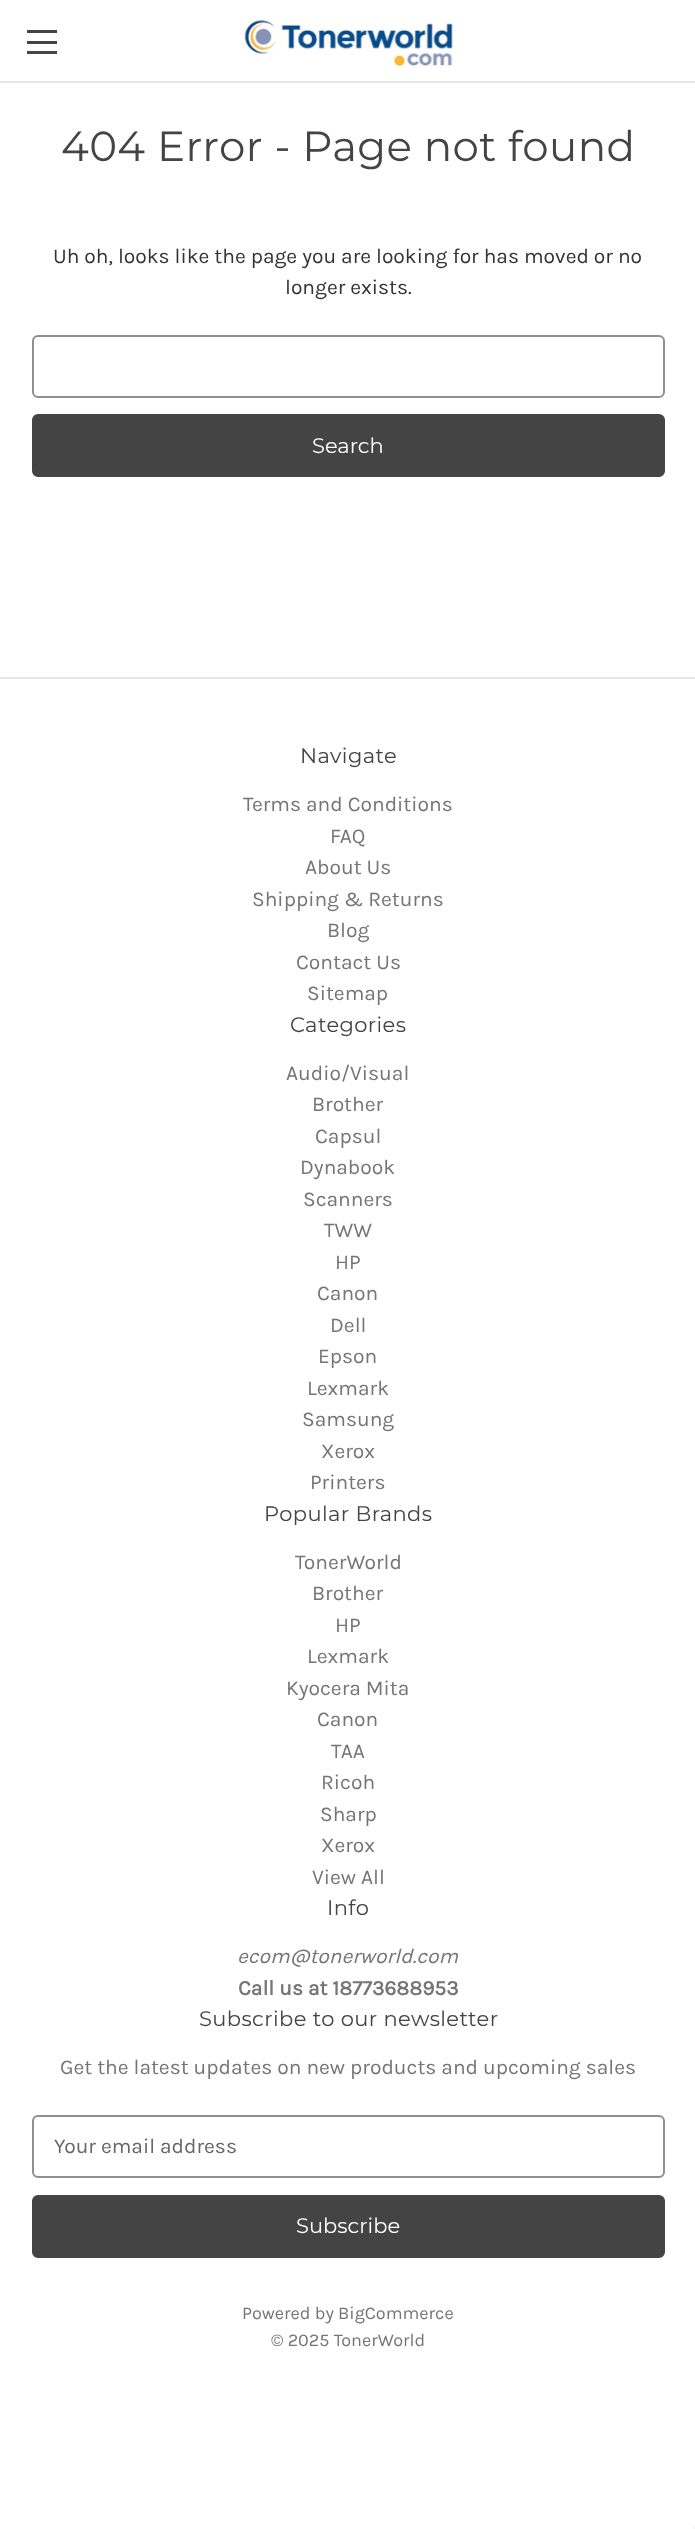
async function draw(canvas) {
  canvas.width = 695;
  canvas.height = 2529;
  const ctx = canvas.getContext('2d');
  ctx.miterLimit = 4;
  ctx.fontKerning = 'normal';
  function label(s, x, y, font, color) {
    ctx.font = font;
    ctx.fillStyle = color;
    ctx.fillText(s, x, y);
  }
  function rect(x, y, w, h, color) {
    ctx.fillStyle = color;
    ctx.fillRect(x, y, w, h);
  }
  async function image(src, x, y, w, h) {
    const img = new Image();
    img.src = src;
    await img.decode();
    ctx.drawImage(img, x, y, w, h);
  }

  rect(0, 0, 695, 2529, '#fff');
  rect(0, 81, 695, 2, '#e5e5e5');
  rect(27, 41, 30, 3, '#444');
  rect(27, 30, 30, 3, '#444');
  rect(27, 51, 30, 3, '#444');
  await image('assets/img1.png', 243, 20, 210, 46);
  ctx.letterSpacing = '0.4px';
  label('404 Error - Page not found', 61, 161, '42px Montserrat', '#444');
  ctx.letterSpacing = '0px';
  label('Uh oh, looks like the page you are looking for has moved or no', 53, 263, '21px Karla', '#333');
  label('longer exists.', 285, 294, '21px Karla', '#333');
  ctx.beginPath();
  ctx.roundRect(33, 336, 631, 61, 5);
  ctx.strokeStyle = '#8f8f8f';
  ctx.lineWidth = 2;
  ctx.stroke();
  ctx.fillStyle = '#444';
  ctx.beginPath();
  ctx.roundRect(33, 415, 631, 61, 5);
  ctx.fill();
  ctx.strokeStyle = '#444';
  ctx.stroke();
  label('Search', 312, 453, '21px Montserrat', '#fff');
  rect(0, 677, 695, 2, '#e5e5e5');
  ctx.letterSpacing = '0.4px';
  label('Navigate', 300, 763, '21px Montserrat', '#444');
  ctx.letterSpacing = '0px';
  label('Terms and Conditions', 243, 811, '21px Karla', '#757575');
  label('FAQ', 330, 843, '21px Karla', '#757575');
  label('About Us', 305, 874, '21px Karla', '#757575');
  label('Shipping & Returns', 252, 906, '21px Karla', '#757575');
  label('Blog', 327, 937, '21px Karla', '#757575');
  label('Contact Us', 296, 969, '21px Karla', '#757575');
  label('Sitemap', 307, 1000, '21px Karla', '#757575');
  ctx.letterSpacing = '0.4px';
  label('Categories', 290, 1032, '21px Montserrat', '#444');
  ctx.letterSpacing = '0px';
  label('Audio/Visual', 286, 1080, '21px Karla', '#757575');
  label('Brother', 312, 1111, '21px Karla', '#757575');
  label('Capsul', 315, 1143, '21px Karla', '#757575');
  label('Dynabook', 300, 1174, '21px Karla', '#757575');
  label('Scanners', 303, 1206, '21px Karla', '#757575');
  label('TWW', 324, 1237, '21px Karla', '#757575');
  label('HP', 335, 1269, '21px Karla', '#757575');
  label('Canon', 317, 1300, '21px Karla', '#757575');
  label('Dell', 330, 1332, '21px Karla', '#757575');
  label('Epson', 318, 1363, '21px Karla', '#757575');
  label('Lexmark', 307, 1395, '21px Karla', '#757575');
  label('Samsung', 302, 1426, '21px Karla', '#757575');
  label('Xerox', 321, 1458, '21px Karla', '#757575');
  label('Printers', 310, 1489, '21px Karla', '#757575');
  ctx.letterSpacing = '0.4px';
  label('Popular Brands', 264, 1521, '21px Montserrat', '#444');
  ctx.letterSpacing = '0px';
  label('TonerWorld', 295, 1569, '21px Karla', '#757575');
  label('Brother', 312, 1600, '21px Karla', '#757575');
  label('HP', 335, 1632, '21px Karla', '#757575');
  label('Lexmark', 307, 1663, '21px Karla', '#757575');
  label('Kyocera Mita', 286, 1695, '21px Karla', '#757575');
  label('Canon', 317, 1726, '21px Karla', '#757575');
  label('TAA', 331, 1758, '21px Karla', '#757575');
  label('Ricoh', 321, 1789, '21px Karla', '#757575');
  label('Sharp', 320, 1821, '21px Karla', '#757575');
  label('Xerox', 321, 1852, '21px Karla', '#757575');
  label('View All', 312, 1884, '21px Karla', '#757575');
  ctx.letterSpacing = '0.4px';
  label('Info', 327, 1915, '21px Montserrat', '#444');
  ctx.letterSpacing = '0px';
  label('ecom@tonerworld.com', 237, 1963, 'italic 21px Karla', '#757575');
  label('Call us at 18773688953', 238, 1995, 'bold 21px Karla', '#757575');
  ctx.letterSpacing = '0.4px';
  label('Subscribe to our newsletter', 199, 2026, '21px Montserrat', '#444');
  ctx.letterSpacing = '0px';
  label('Get the latest updates on new products and upcoming sales', 60, 2074, '21px Karla', '#757575');
  ctx.beginPath();
  ctx.roundRect(33, 2116, 631, 61, 5);
  ctx.strokeStyle = '#8f8f8f';
  ctx.stroke();
  label('Your email address', 54, 2153, '21px Karla', '#666');
  ctx.fillStyle = '#444';
  ctx.beginPath();
  ctx.roundRect(33, 2196, 631, 61, 5);
  ctx.fill();
  ctx.strokeStyle = '#444';
  ctx.stroke();
  label('Subscribe', 296, 2233, '21px Montserrat', '#fff');
  label('Powered by BigCommerce', 242, 2319, '18px Karla', '#757575');
  label('© 2025 TonerWorld', 271, 2346, '18px Karla', '#757575');
  rect(693, 2526, 2, 3, '#f5f5f5');
}

draw(document.querySelector('canvas'));
